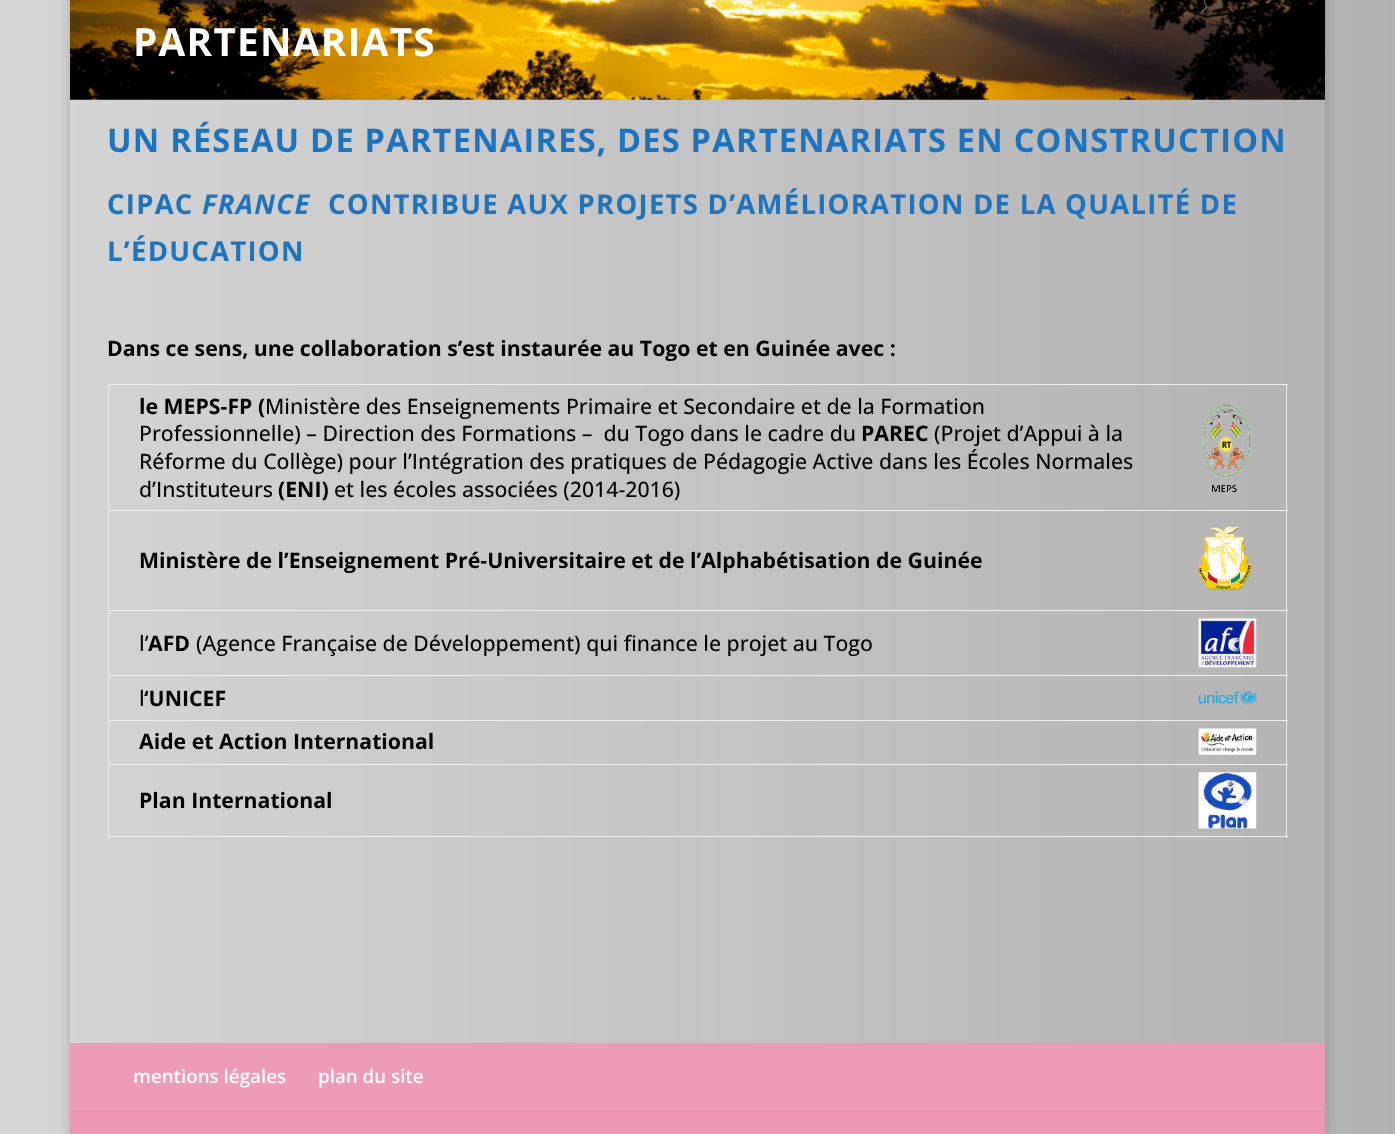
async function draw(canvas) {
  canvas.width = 1395;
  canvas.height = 1134;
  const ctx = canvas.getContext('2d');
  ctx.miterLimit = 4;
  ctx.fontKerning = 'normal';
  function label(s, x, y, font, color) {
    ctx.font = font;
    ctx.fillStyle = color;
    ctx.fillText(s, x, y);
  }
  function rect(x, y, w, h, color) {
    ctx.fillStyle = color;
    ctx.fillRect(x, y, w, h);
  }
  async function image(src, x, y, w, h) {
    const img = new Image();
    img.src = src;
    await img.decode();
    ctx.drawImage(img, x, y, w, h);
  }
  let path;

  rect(0, 0, 1395, 1134, '#fff');
  await image('assets/img1.png', 0, 0, 1395, 1134);
  ctx.save();
  path = new Path2D('M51 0H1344V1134H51ZM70-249H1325V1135H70Z');
  ctx.clip(path, 'evenodd');
  ctx.fillStyle = '#00000033';
  ctx.filter = 'blur(6px)';
  ctx.beginPath();
  ctx.rect(70, -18, 1255, 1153);
  ctx.fill();
  ctx.filter = 'none';
  ctx.restore();
  await image('assets/img3.png', 70, 0, 1255, 100);
  await image('assets/img2.png', 1200, 0, 22, 14);
  ctx.letterSpacing = '1.25px';
  label('PARTENARIATS', 133, 56, 'bold 38.75px Open Sans', '#fff');
  label('UN RÉSEAU DE PARTENAIRES, DES PARTENARIATS EN CONSTRUCTION', 107, 152, 'bold 32.5px Open Sans', '#1e73be');
  label('CIPAC', 107, 214, 'bold 27.5px Open Sans', '#1e73be');
  label('FRANCE', 202, 214, 'italic bold 27.5px Open Sans', '#1e73be');
  label('CONTRIBUE AUX PROJETS D’AMÉLIORATION DE LA QUALITÉ DE', 328, 214, 'bold 27.5px Open Sans', '#1e73be');
  label('L’ÉDUCATION', 107, 261, 'bold 27.5px Open Sans', '#1e73be');
  ctx.letterSpacing = '0px';
  label('Dans ce sens, une collaboration s’est instaurée au Togo et en Guinée avec :', 107, 356, 'bold 21.25px Open Sans', '#000');
  rect(108, 384, 1180, 1, '#eee');
  rect(1286, 384, 1, 454, '#eee');
  rect(108, 836, 1180, 1, '#eee');
  rect(108, 384, 1, 454, '#eee');
  label('le MEPS-FP (', 139, 414, 'bold 21.25px Open Sans', '#000');
  label('Ministère des Enseignements Primaire et Secondaire et de la Formation', 265, 414, '500 21.25px Open Sans', '#000');
  label('Professionnelle) – Direction des Formations –  du Togo dans le cadre du', 139, 441, '500 21.25px Open Sans', '#000');
  label('PAREC', 861, 441, 'bold 21.25px Open Sans', '#000');
  label('(Projet d’Appui à la', 934, 441, '500 21.25px Open Sans', '#000');
  label('Réforme du Collège) pour l’Intégration des pratiques de Pédagogie Active dans les Écoles Normales', 139, 469, '500 21.25px Open Sans', '#000');
  label('d’Instituteurs', 139, 497, '500 21.25px Open Sans', '#000');
  label('(ENI)', 278, 497, 'bold 21.25px Open Sans', '#000');
  label('et les écoles associées (2014-2016)', 334, 497, '500 21.25px Open Sans', '#000');
  await image('assets/img4.png', 1202, 404, 49, 88);
  rect(108, 510, 1180, 1, '#eee');
  await image('assets/img5.png', 1198, 526, 54, 65);
  label('Ministère de l’Enseignement Pré-Universitaire et de l’Alphabétisation de Guinée', 139, 568, 'bold 21.25px Open Sans', '#000');
  rect(108, 610, 1180, 1, '#eee');
  await image('assets/img6.png', 1198, 618, 59, 50);
  label('l’', 139, 651, '500 21.25px Open Sans', '#000');
  label('AFD', 148, 651, 'bold 21.25px Open Sans', '#000');
  label('(Agence Française de Développement) qui finance le projet au Togo', 196, 651, '500 21.25px Open Sans', '#000');
  rect(108, 675, 1180, 1, '#eee');
  await image('assets/img7.png', 1198, 691, 59, 14);
  label('l', 139, 706, '500 21.25px Open Sans', '#000');
  label('‘UNICEF', 144, 706, 'bold 21.25px Open Sans', '#000');
  rect(108, 720, 1180, 1, '#eee');
  await image('assets/img8.png', 1198, 728, 59, 27);
  label('Aide et Action International', 139, 749, 'bold 21.25px Open Sans', '#000');
  rect(108, 764, 1180, 1, '#eee');
  await image('assets/img9.png', 1198, 772, 59, 57);
  label('Plan International', 139, 808, 'bold 21.25px Open Sans', '#000');
  rect(70, 1110, 1255, 24, '#ed95b5');
  rect(70, 1043, 1255, 67, '#ee9ab9');
  label('mentions légales', 133, 1083, '600 18.75px Open Sans', '#fff');
  label('plan du site', 318, 1083, '600 18.75px Open Sans', '#fff');
}

draw(document.querySelector('canvas'));
